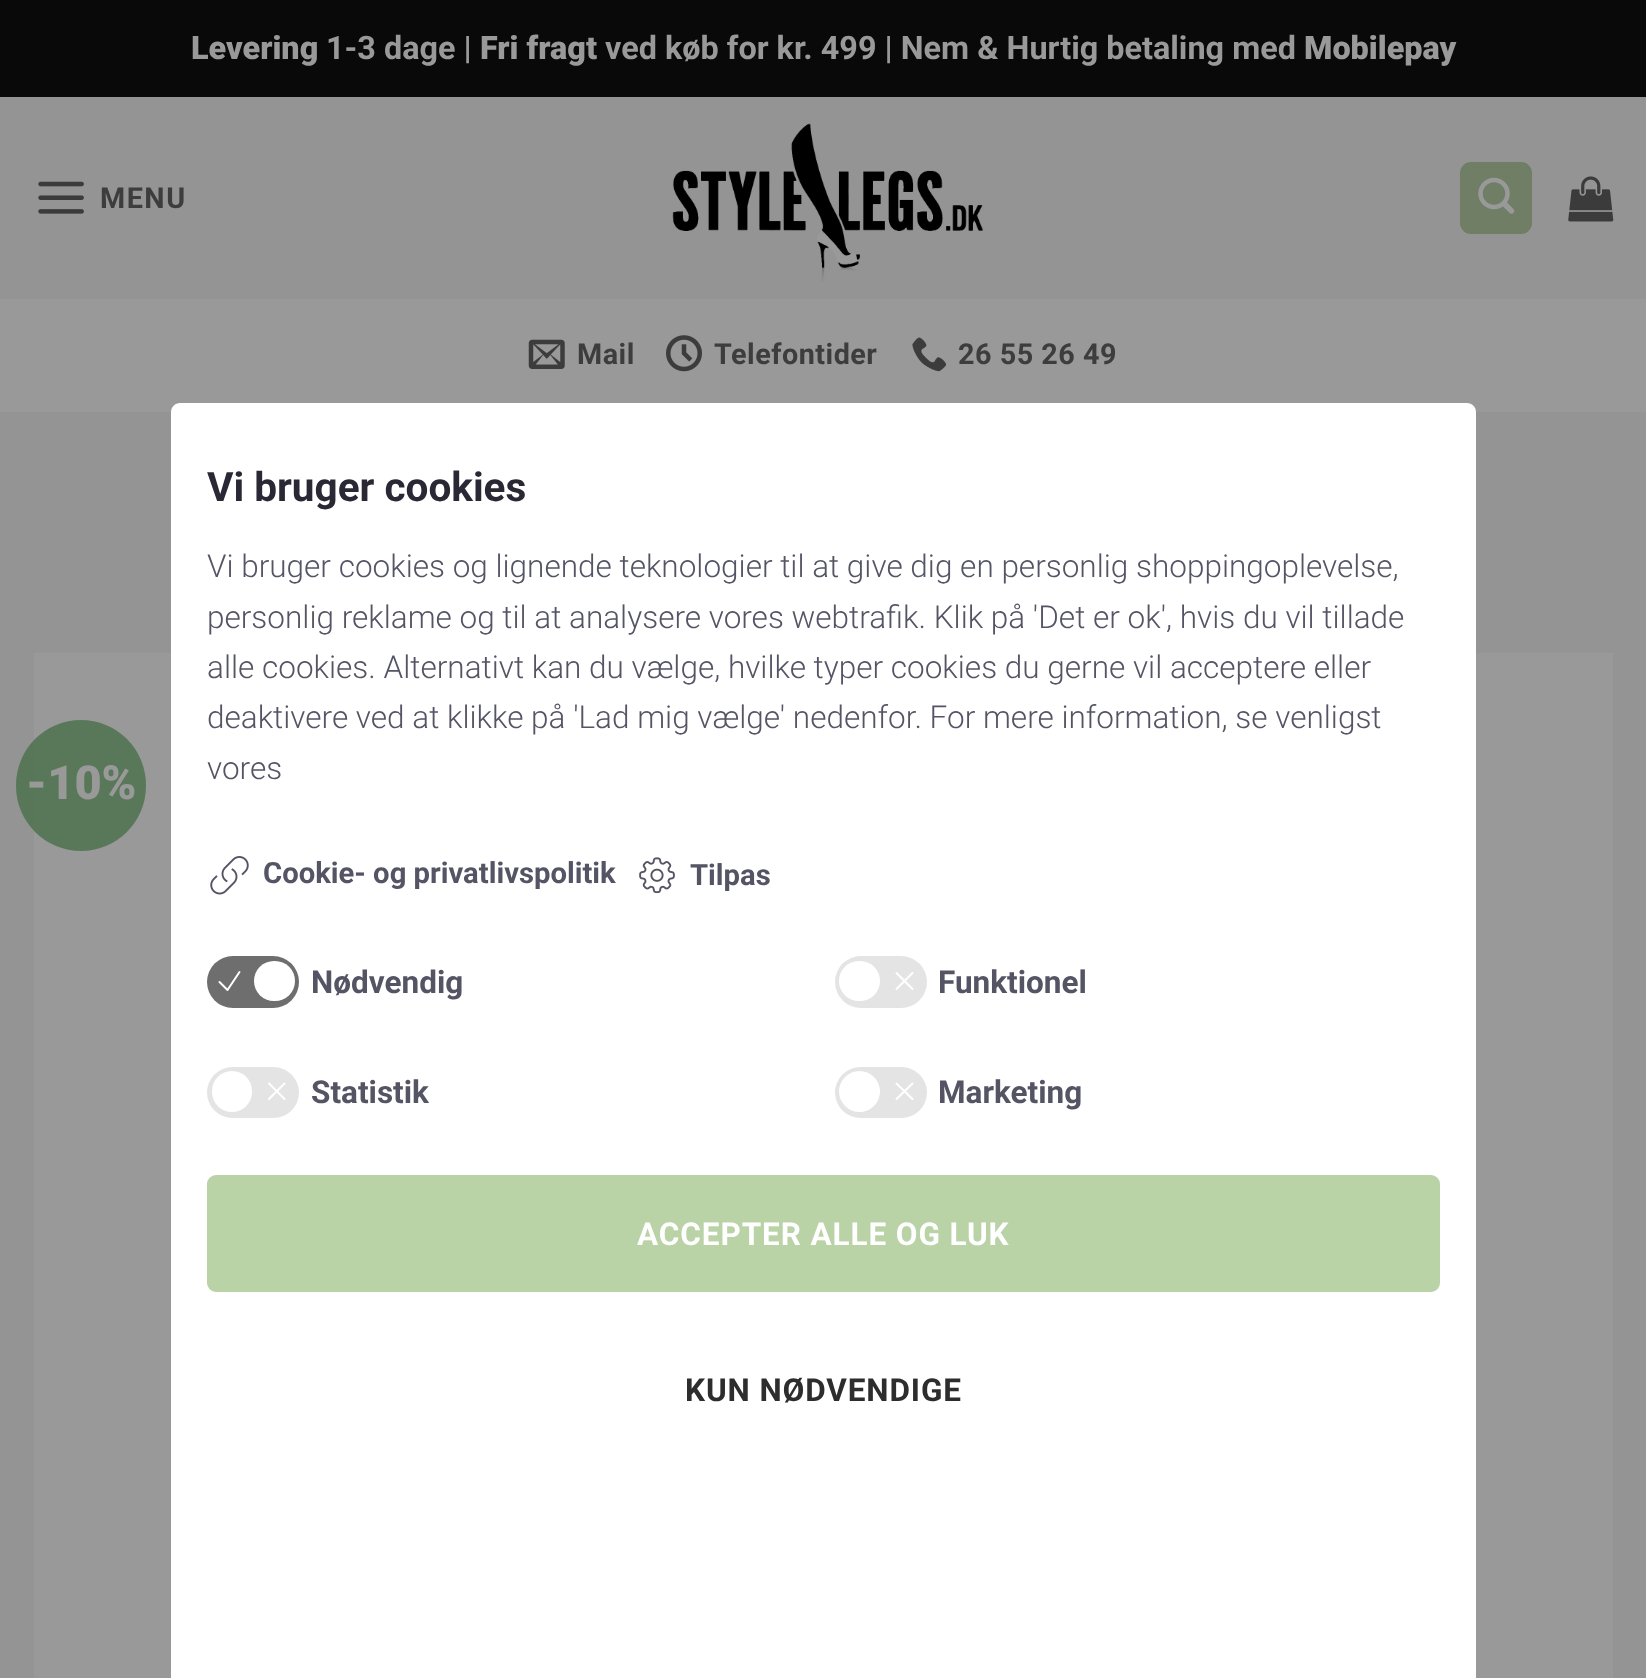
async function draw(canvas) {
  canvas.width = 1646;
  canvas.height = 1678;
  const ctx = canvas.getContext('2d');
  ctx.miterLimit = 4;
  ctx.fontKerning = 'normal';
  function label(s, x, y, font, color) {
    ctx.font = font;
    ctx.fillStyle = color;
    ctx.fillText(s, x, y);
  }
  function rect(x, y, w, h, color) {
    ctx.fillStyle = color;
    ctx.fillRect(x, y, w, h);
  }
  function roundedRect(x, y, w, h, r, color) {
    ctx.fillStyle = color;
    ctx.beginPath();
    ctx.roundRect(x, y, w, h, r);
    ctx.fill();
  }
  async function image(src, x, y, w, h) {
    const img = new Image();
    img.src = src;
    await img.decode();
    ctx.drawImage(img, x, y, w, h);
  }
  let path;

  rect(0, 0, 1646, 1678, '#949494');
  rect(0, 0, 1646, 97, '#090909');
  label('Levering', 191, 59, '900 32.4px Roboto', '#999');
  label('1-3 dage |', 326, 59, 'bold 32.4px Roboto', '#999');
  label('Fri fragt', 480, 59, '900 32.4px Roboto', '#999');
  label('ved køb for kr. 499 | Nem & Hurtig betaling med', 605, 59, 'bold 32.4px Roboto', '#999');
  label('Mobilepay', 1304, 59, '900 32.4px Roboto', '#999');
  await image('assets/img1.png', 38, 181, 46, 33);
  ctx.letterSpacing = '1.5px';
  label('MENU', 100, 208, 'bold 28.75px Roboto', '#3d3d3d');
  await image('assets/img2.png', 672, 123, 311, 159);
  ctx.fillStyle = '#6f7e64';
  ctx.beginPath();
  ctx.roundRect(1461, 163, 70, 70, 10);
  ctx.fill();
  ctx.strokeStyle = '#6f7e64';
  ctx.lineWidth = 2;
  ctx.stroke();
  await image('assets/img3.png', 1478, 177, 37, 37);
  await image('assets/img4.png', 1568, 176, 46, 46);
  rect(0, 299, 1646, 113, '#999');
  await image('assets/img5.png', 528, 339, 37, 30);
  ctx.letterSpacing = '0.5px';
  label('Mail', 577, 364, 'bold 28.75px Roboto', '#3d3d3d');
  await image('assets/img6.png', 666, 335, 36, 37);
  label('Telefontider', 714, 364, 'bold 28.75px Roboto', '#3d3d3d');
  await image('assets/img7.png', 912, 337, 35, 35);
  label('26 55 26 49', 958, 364, 'bold 28.75px Roboto', '#3d3d3d');
  await image('assets/img8.png', 34, 652, 1579, 1026);
  roundedRect(16, 720, 130, 131, 65, '#436e44bf');
  ctx.letterSpacing = '0px';
  label('-10%', 26, 799, '900 47px Roboto', '#999');
  ctx.fillStyle = '#fff';
  path = new Path2D('M180 403H1467C1472 403 1476 407 1476 412V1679H171V412C171 407 175 403 180 403Z');
  ctx.fill(path);
  label('Vi bruger cookies', 207, 501, 'bold 40.5px Roboto', '#292834');
  label('Vi bruger cookies og lignende teknologier til at give dig en personlig shoppingoplevelse,', 207, 577, '300 31.5px Roboto', '#545465');
  label('personlig reklame og til at analysere vores webtrafik. Klik på \'Det er ok\', hvis du vil tillade', 207, 628, '300 31.5px Roboto', '#545465');
  label('alle cookies. Alternativt kan du vælge, hvilke typer cookies du gerne vil acceptere eller', 207, 678, '300 31.5px Roboto', '#545465');
  label('deaktivere ved at klikke på \'Lad mig vælge\' nedenfor. For mere information, se venligst', 207, 728, '300 31.5px Roboto', '#545465');
  label('vores', 207, 779, '300 31.5px Roboto', '#545465');
  await image('assets/img9.png', 210, 856, 39, 39);
  label('Cookie- og privatlivspolitik', 263, 883, 'bold 29.25px Roboto', '#545465');
  await image('assets/img10.png', 639, 857, 36, 37);
  label('Tilpas', 690, 885, 'bold 29.25px Roboto', '#545465');
  roundedRect(207, 956, 92, 52, 26, '#6e6e6e');
  path = new Path2D('M219.5 982L227.5 990L239.5 972');
  ctx.strokeStyle = '#fff';
  ctx.lineCap = 'round';
  ctx.lineJoin = 'round';
  ctx.stroke(path);
  roundedRect(254, 961, 41, 40, 20, '#fff');
  label('Nødvendig', 311, 993, 'bold 31.5px Roboto', '#545465');
  roundedRect(835, 956, 92, 52, 26, '#e4e4e4');
  roundedRect(839, 961, 41, 40, 20, '#fff');
  path = new Path2D('M896.5 989L912.5 973M896.5 973L912.5 989');
  ctx.stroke(path);
  label('Funktionel', 938, 993, 'bold 31.5px Roboto', '#545465');
  roundedRect(207, 1067, 92, 51, 25.5, '#e4e4e4');
  roundedRect(212, 1071, 40, 41, 20, '#fff');
  path = new Path2D('M269 1099L284.5 1083.5M269 1083.5L284.5 1099');
  ctx.stroke(path);
  label('Statistik', 311, 1103, 'bold 31.5px Roboto', '#545465');
  roundedRect(835, 1067, 92, 51, 25.5, '#e4e4e4');
  ctx.fillStyle = '#fff';
  ctx.beginPath();
  ctx.arc(859.5, 1091.5, 20.5, 0, 2 * Math.PI);
  ctx.fill();
  path = new Path2D('M896.5 1099L912.5 1083.5M896.5 1083.5L912.5 1099');
  ctx.stroke(path);
  label('Marketing', 938, 1103, 'bold 31.5px Roboto', '#545465');
  ctx.fillStyle = '#b9d2a6';
  ctx.beginPath();
  ctx.roundRect(208, 1176, 1231, 115, 8);
  ctx.fill();
  ctx.strokeStyle = '#b9d2a6';
  ctx.lineJoin = 'miter';
  ctx.stroke();
  ctx.letterSpacing = '0.9px';
  label('ACCEPTER ALLE OG LUK', 637, 1245, 'bold 31.5px Roboto', '#fff');
  label('KUN NØDVENDIGE', 685, 1401, 'bold 31.5px Roboto', '#2d2d2d');
}

draw(document.querySelector('canvas'));
